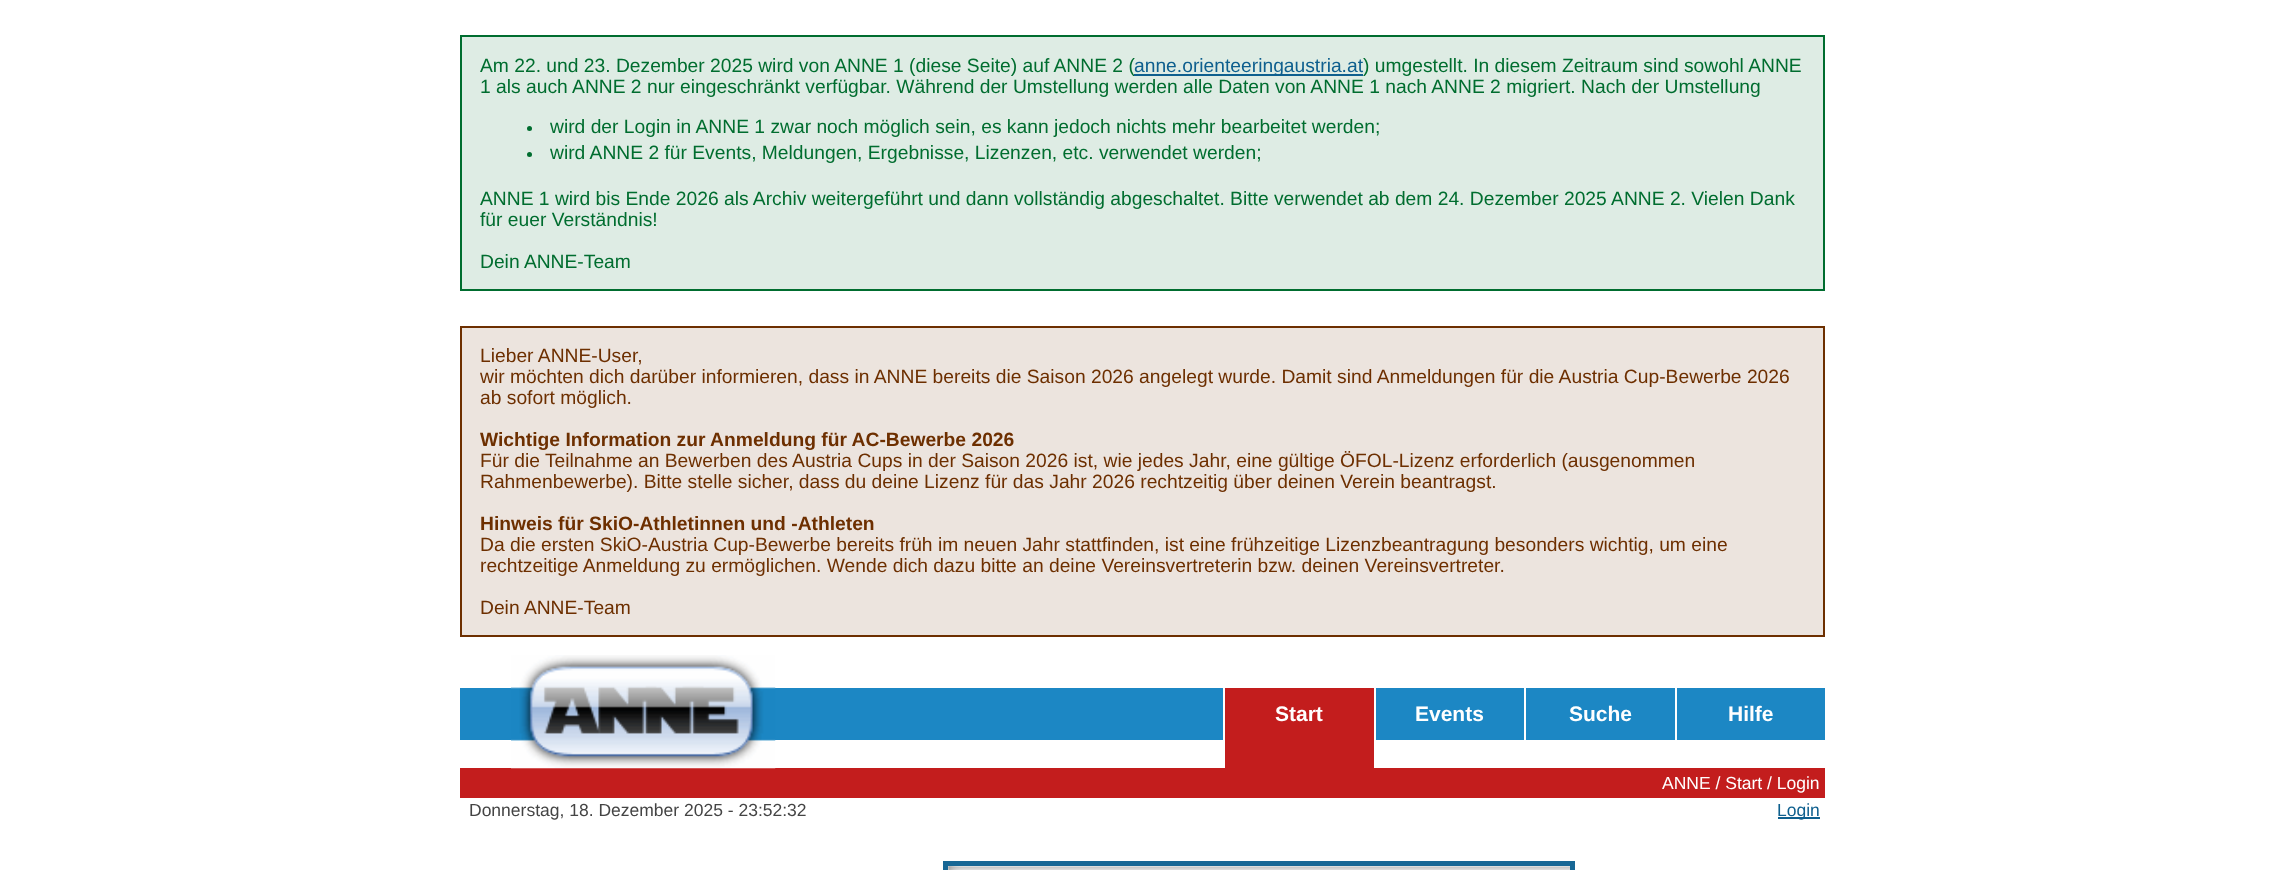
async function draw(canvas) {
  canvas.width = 2284;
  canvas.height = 870;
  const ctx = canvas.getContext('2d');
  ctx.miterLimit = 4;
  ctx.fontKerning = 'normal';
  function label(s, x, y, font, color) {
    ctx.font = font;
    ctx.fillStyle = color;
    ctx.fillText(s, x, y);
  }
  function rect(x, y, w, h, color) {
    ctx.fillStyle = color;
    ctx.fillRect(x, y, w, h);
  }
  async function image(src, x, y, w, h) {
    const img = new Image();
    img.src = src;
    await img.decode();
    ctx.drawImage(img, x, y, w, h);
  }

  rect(0, 0, 2284, 870, '#fff');
  ctx.fillStyle = '#deece4';
  ctx.beginPath();
  ctx.rect(461, 36, 1363, 254);
  ctx.fill();
  ctx.strokeStyle = '#006d2f';
  ctx.lineWidth = 2;
  ctx.stroke();
  label('Am 22. und 23. Dezember 2025 wird von ANNE 1 (diese Seite) auf ANNE 2 (', 480, 72, '19.25px Liberation Sans', '#006d2f');
  rect(1134, 74, 229, 2, '#0e5f8e');
  label('anne.orienteeringaustria.at', 1134, 72, '19.25px Liberation Sans', '#0e5f8e');
  label(') umgestellt. In diesem Zeitraum sind sowohl ANNE', 1363, 72, '19.25px Liberation Sans', '#006d2f');
  label('1 als auch ANNE 2 nur eingeschränkt verfügbar. Während der Umstellung werden alle Daten von ANNE 1 nach ANNE 2 migriert. Nach der Umstellung', 480, 93, '19.25px Liberation Sans', '#006d2f');
  ctx.beginPath();
  ctx.arc(529.5, 128.5, 2.5, 0, 2 * Math.PI);
  ctx.fill();
  label('wird der Login in ANNE 1 zwar noch möglich sein, es kann jedoch nichts mehr bearbeitet werden;', 550, 133, '19.25px Liberation Sans', '#006d2f');
  ctx.beginPath();
  ctx.arc(529.5, 154.5, 2.5, 0, 2 * Math.PI);
  ctx.fill();
  label('wird ANNE 2 für Events, Meldungen, Ergebnisse, Lizenzen, etc. verwendet werden;', 550, 159, '19.25px Liberation Sans', '#006d2f');
  label('ANNE 1 wird bis Ende 2026 als Archiv weitergeführt und dann vollständig abgeschaltet. Bitte verwendet ab dem 24. Dezember 2025 ANNE 2. Vielen Dank', 480, 205, '19.25px Liberation Sans', '#006d2f');
  label('für euer Verständnis!', 480, 226, '19.25px Liberation Sans', '#006d2f');
  label('Dein ANNE-Team', 480, 268, '19.25px Liberation Sans', '#006d2f');
  ctx.fillStyle = '#ece4de';
  ctx.beginPath();
  ctx.rect(461, 327, 1363, 309);
  ctx.fill();
  ctx.strokeStyle = '#6d2f00';
  ctx.stroke();
  label('Lieber ANNE-User,', 480, 362, '19.25px Liberation Sans', '#6d2f00');
  label('wir möchten dich darüber informieren, dass in ANNE bereits die Saison 2026 angelegt wurde. Damit sind Anmeldungen für die Austria Cup-Bewerbe 2026', 480, 383, '19.25px Liberation Sans', '#6d2f00');
  label('ab sofort möglich.', 480, 404, '19.25px Liberation Sans', '#6d2f00');
  label('Wichtige Information zur Anmeldung für AC-Bewerbe 2026', 480, 446, 'bold 19.25px Liberation Sans', '#6d2f00');
  label('Für die Teilnahme an Bewerben des Austria Cups in der Saison 2026 ist, wie jedes Jahr, eine gültige ÖFOL-Lizenz erforderlich (ausgenommen', 480, 467, '19.25px Liberation Sans', '#6d2f00');
  label('Rahmenbewerbe). Bitte stelle sicher, dass du deine Lizenz für das Jahr 2026 rechtzeitig über deinen Verein beantragst.', 480, 488, '19.25px Liberation Sans', '#6d2f00');
  label('Hinweis für SkiO-Athletinnen und -Athleten', 480, 530, 'bold 19.25px Liberation Sans', '#6d2f00');
  label('Da die ersten SkiO-Austria Cup-Bewerbe bereits früh im neuen Jahr stattfinden, ist eine frühzeitige Lizenzbeantragung besonders wichtig, um eine', 480, 551, '19.25px Liberation Sans', '#6d2f00');
  label('rechtzeitige Anmeldung zu ermöglichen. Wende dich dazu bitte an deine Vereinsvertreterin bzw. deinen Vereinsvertreter.', 480, 572, '19.25px Liberation Sans', '#6d2f00');
  label('Dein ANNE-Team', 480, 614, '19.25px Liberation Sans', '#6d2f00');
  rect(775, 688, 448, 52, '#1c87c4');
  rect(460, 768, 1365, 30, '#c31d1d');
  await image('assets/img1.png', 511, 655, 265, 114);
  rect(460, 688, 51, 52, '#1c87c4');
  rect(1225, 688, 149, 80, '#c31d1d');
  label('Start', 1275, 721, 'bold 21px Liberation Sans', '#fff');
  rect(1376, 688, 148, 52, '#1c87c4');
  label('Events', 1415, 721, 'bold 21px Liberation Sans', '#fff');
  rect(1526, 688, 149, 52, '#1c87c4');
  label('Suche', 1569, 721, 'bold 21px Liberation Sans', '#fff');
  rect(1677, 688, 148, 52, '#1c87c4');
  label('Hilfe', 1728, 721, 'bold 21px Liberation Sans', '#fff');
  label('ANNE / Start / Login', 1662, 789, '17.5px Liberation Sans', '#fff');
  label('Donnerstag, 18. Dezember 2025 - 23:52:32', 469, 816, '17.5px Liberation Sans', '#444');
  rect(1778, 817, 42, 2, '#0e5f8e');
  label('Login', 1777, 816, '17.5px Liberation Sans', '#0e5f8e');
  await image('assets/img2.png', 948, 866, 622, 4);
  ctx.strokeStyle = '#176795';
  ctx.lineWidth = 5;
  ctx.strokeRect(945.5, 863.5, 627, 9);
}

draw(document.querySelector('canvas'));
